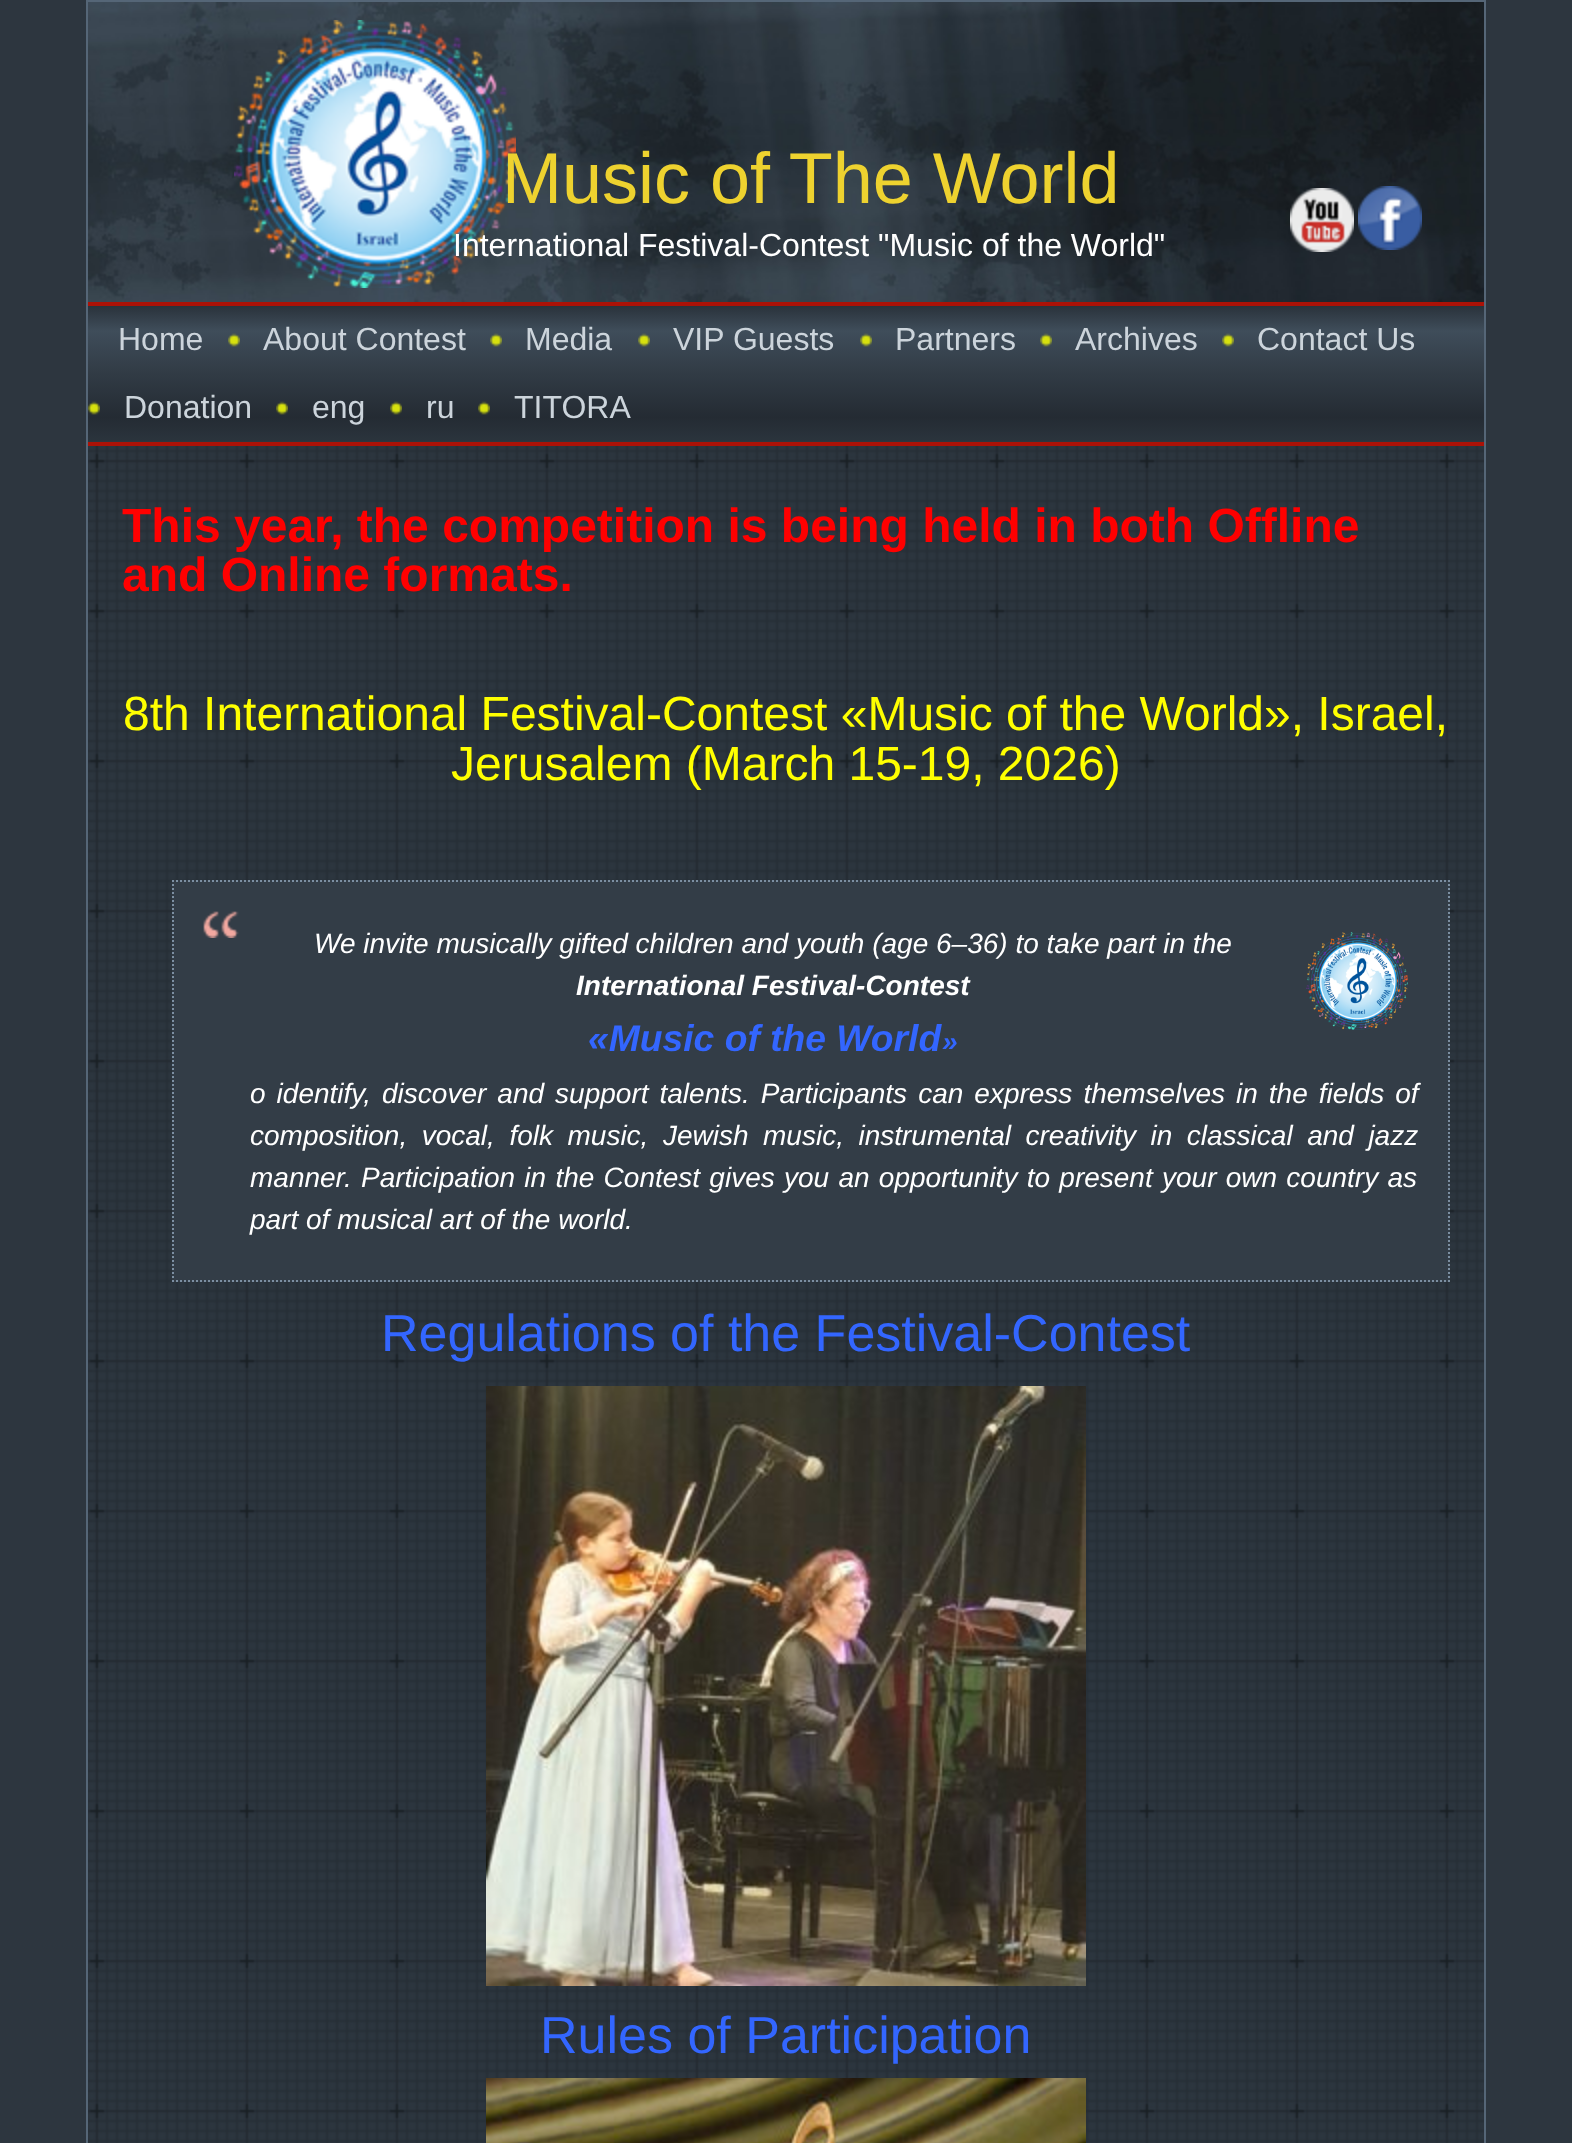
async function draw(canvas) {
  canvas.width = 1572;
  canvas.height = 2143;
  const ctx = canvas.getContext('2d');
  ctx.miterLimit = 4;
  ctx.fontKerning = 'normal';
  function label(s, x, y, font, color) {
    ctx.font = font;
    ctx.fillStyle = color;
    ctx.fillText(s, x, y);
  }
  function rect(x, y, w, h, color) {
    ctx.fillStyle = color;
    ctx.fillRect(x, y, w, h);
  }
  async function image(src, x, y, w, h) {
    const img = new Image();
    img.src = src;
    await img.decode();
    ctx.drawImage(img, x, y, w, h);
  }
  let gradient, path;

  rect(0, 0, 1572, 2143, '#2d363f');
  rect(88, 446, 1396, 1697, '#222930');
  await image('assets/img1.png', 88, 446, 1396, 1697);
  ctx.strokeStyle = '#567';
  ctx.lineWidth = 2;
  ctx.strokeRect(87, 1, 1398, 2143);
  await image('assets/img2.png', 88, 2, 1396, 300);
  await image('assets/img3.png', 234, 20, 282, 268);
  label('Music of The World', 502, 203, '72px Liberation Sans', '#eed22f');
  label('International Festival-Contest "Music of the World"', 453, 256, '32px Liberation Sans', '#fff');
  await image('assets/img4.png', 1290, 188, 64, 64);
  await image('assets/img5.png', 1358, 186, 64, 64);
  gradient = ctx.createLinearGradient(786, 302, 786, 446);
  gradient.addColorStop(0, '#262e36');
  gradient.addColorStop(0.2, '#3f4d5a');
  gradient.addColorStop(0.5, '#313b45');
  gradient.addColorStop(0.8, '#242b33');
  gradient.addColorStop(1, '#2c363f');
  ctx.fillStyle = gradient;
  ctx.fillRect(88, 306, 1396, 135);
  rect(88, 302, 1396, 4, '#ab1207');
  rect(88, 442, 1396, 4, '#ab1207');
  label('Home', 118, 350, '32px Liberation Sans', '#ccd4db');
  await image('assets/img6.png', 228, 333, 12, 14);
  label('About Contest', 263, 350, '32px Liberation Sans', '#ccd4db');
  await image('assets/img6.png', 490, 333, 12, 14);
  label('Media', 525, 350, '32px Liberation Sans', '#ccd4db');
  await image('assets/img6.png', 638, 333, 12, 14);
  label('VIP Guests', 673, 350, '32px Liberation Sans', '#ccd4db');
  await image('assets/img6.png', 860, 333, 12, 14);
  label('Partners', 895, 350, '32px Liberation Sans', '#ccd4db');
  await image('assets/img6.png', 1040, 333, 12, 14);
  label('Archives', 1075, 350, '32px Liberation Sans', '#ccd4db');
  await image('assets/img6.png', 1222, 333, 12, 14);
  label('Contact Us', 1257, 350, '32px Liberation Sans', '#ccd4db');
  await image('assets/img7.png', 88, 401, 12, 14);
  label('Donation', 124, 418, '32px Liberation Sans', '#ccd4db');
  await image('assets/img7.png', 276, 401, 12, 14);
  label('eng', 312, 418, '32px Liberation Sans', '#ccd4db');
  await image('assets/img7.png', 390, 401, 12, 14);
  label('ru', 426, 418, '32px Liberation Sans', '#ccd4db');
  await image('assets/img7.png', 478, 401, 12, 14);
  label('TITORA', 514, 418, '32px Liberation Sans', '#ccd4db');
  label('This year, the competition is being held in both Offline', 122, 542, 'bold 48px Liberation Sans', '#f00');
  label('and Online formats.', 122, 591, 'bold 48px Liberation Sans', '#f00');
  label('8th International Festival-Contest «Music of the World», Israel,', 123, 730, '48px Liberation Sans', '#ff0');
  label('Jerusalem (March 15-19, 2026)', 451, 780, '48px Liberation Sans', '#ff0');
  rect(172, 880, 1278, 402, '#333d47');
  await image('assets/img8.png', 203, 911, 36, 27);
  path = new Path2D('M172 881H1450');
  ctx.strokeStyle = '#7c8fa2';
  ctx.setLineDash([2, 2]);
  ctx.stroke(path);
  path = new Path2D('M1449 880V1282');
  ctx.stroke(path);
  path = new Path2D('M172 1281H1450');
  ctx.stroke(path);
  path = new Path2D('M173 880V1282');
  ctx.stroke(path);
  label('We invite musically gifted children and youth (age 6–36) to take part in the', 314, 953, 'italic 28px Liberation Sans', '#fff');
  await image('assets/img9.png', 1306, 932, 102, 98);
  label('International Festival-Contest', 576, 995, 'italic bold 28px Liberation Sans', '#fff');
  label('«Music of the World', 588, 1051, 'italic bold 37.25px Liberation Sans', '#36f');
  label('»', 942, 1051, 'italic bold 28px Liberation Sans', '#36f');
  ctx.wordSpacing = '3.25px';
  label('o identify, discover and support talents. Participants can express themselves in the fields of', 250, 1103, 'italic 28px Liberation Sans', '#fff');
  ctx.wordSpacing = '6.75px';
  label('composition, vocal, folk music, Jewish music, instrumental creativity in classical and jazz', 250, 1145, 'italic 28px Liberation Sans', '#fff');
  ctx.wordSpacing = '1.5px';
  label('manner. Participation in the Contest gives you an opportunity to present your own country as', 250, 1187, 'italic 28px Liberation Sans', '#fff');
  ctx.wordSpacing = '0px';
  label('part of musical art of the world.', 250, 1229, 'italic 28px Liberation Sans', '#fff');
  label('Regulations of the Festival-Contest', 381, 1351, '52px Liberation Sans', '#36f');
  await image('assets/img10.png', 486, 1386, 600, 600);
  label('Rules of Participation', 540, 2053, '52px Liberation Sans', '#36f');
  await image('assets/img11.png', 486, 2078, 600, 65);
}

draw(document.querySelector('canvas'));
